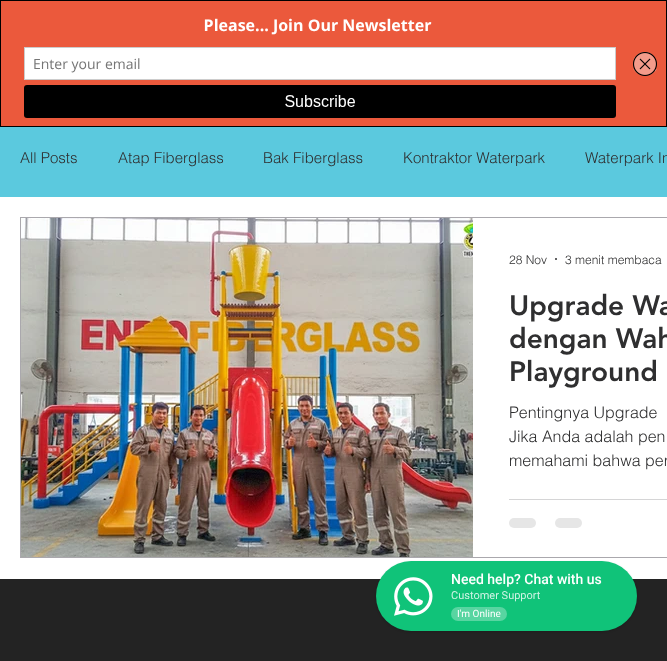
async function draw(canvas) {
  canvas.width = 667;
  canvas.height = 661;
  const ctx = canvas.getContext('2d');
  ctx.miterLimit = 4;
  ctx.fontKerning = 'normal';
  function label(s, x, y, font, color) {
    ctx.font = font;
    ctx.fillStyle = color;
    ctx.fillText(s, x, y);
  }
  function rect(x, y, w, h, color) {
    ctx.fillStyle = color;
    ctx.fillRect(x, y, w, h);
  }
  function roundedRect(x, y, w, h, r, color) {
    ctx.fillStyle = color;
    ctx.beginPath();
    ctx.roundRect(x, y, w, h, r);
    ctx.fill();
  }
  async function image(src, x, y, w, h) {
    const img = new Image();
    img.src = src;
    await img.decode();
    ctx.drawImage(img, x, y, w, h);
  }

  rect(0, 0, 667, 661, '#fff');
  await image('assets/img1.png', 0, 0, 667, 127);
  rect(0, 127, 667, 70, '#5bc9de');
  label('All Posts', 20, 163, '300 15px helvetica', '#2f2f30');
  label('Atap Fiberglass', 118, 163, '300 15px helvetica', '#2f2f30');
  label('Bak Fiberglass', 263, 163, '300 15px helvetica', '#2f2f30');
  label('Kontraktor Waterpark', 403, 163, '300 15px helvetica', '#2f2f30');
  label('Waterpark In', 585, 163, '300 15px helvetica', '#2f2f30');
  ctx.strokeStyle = '#aaa8ad';
  ctx.strokeRect(20.5, 217.5, 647, 340);
  await image('assets/img2.png', 21, 218, 452, 339);
  label('28 Nov', 509, 264, '300 12px helvetica', '#2f2f30');
  ctx.beginPath();
  ctx.arc(556, 259, 1, 0, 2 * Math.PI);
  ctx.fill();
  label('3 menit membaca', 565, 264, '300 12px helvetica', '#2f2f30');
  label('Upgrade Wa', 509, 315, '900 28px "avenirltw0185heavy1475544"', '#2f2f30');
  label('dengan Wah', 509, 348, '900 28px "avenirltw0185heavy1475544"', '#2f2f30');
  label('Playground', 509, 381, '900 28px "avenirltw0185heavy1475544"', '#2f2f30');
  label('Pentingnya Upgrade', 509, 418, '300 16px helvetica', '#2f2f30');
  label('Jika Anda adalah pen', 509, 442, '300 16px helvetica', '#2f2f30');
  label('memahami bahwa per', 509, 466, '300 16px helvetica', '#2f2f30');
  rect(509, 499, 158, 1, '#d5d5d6');
  roundedRect(509, 518, 27, 10, 5, '#e6e6e6');
  roundedRect(555, 518, 27, 10, 5, '#e6e6e6');
  rect(0, 579, 667, 82, '#232323');
  ctx.fillStyle = '#00000026';
  ctx.filter = 'blur(1px)';
  ctx.beginPath();
  ctx.roundRect(376, 562, 261, 70, 35);
  ctx.fill();
  ctx.filter = 'none';
  roundedRect(376, 561, 261, 70, 35, '#10c379');
  await image('assets/img3.png', 394, 577, 39, 39);
  label('Need help? Chat with us', 451, 584, '500 14px Roboto', '#fff');
  label('Customer Support', 451, 599, '11px Roboto', '#cff3e4');
  roundedRect(451, 607, 56, 14, 7, '#58d5a1');
  label('I\'m Online', 457, 617, '10px Roboto', '#fff');
}

draw(document.querySelector('canvas'));
